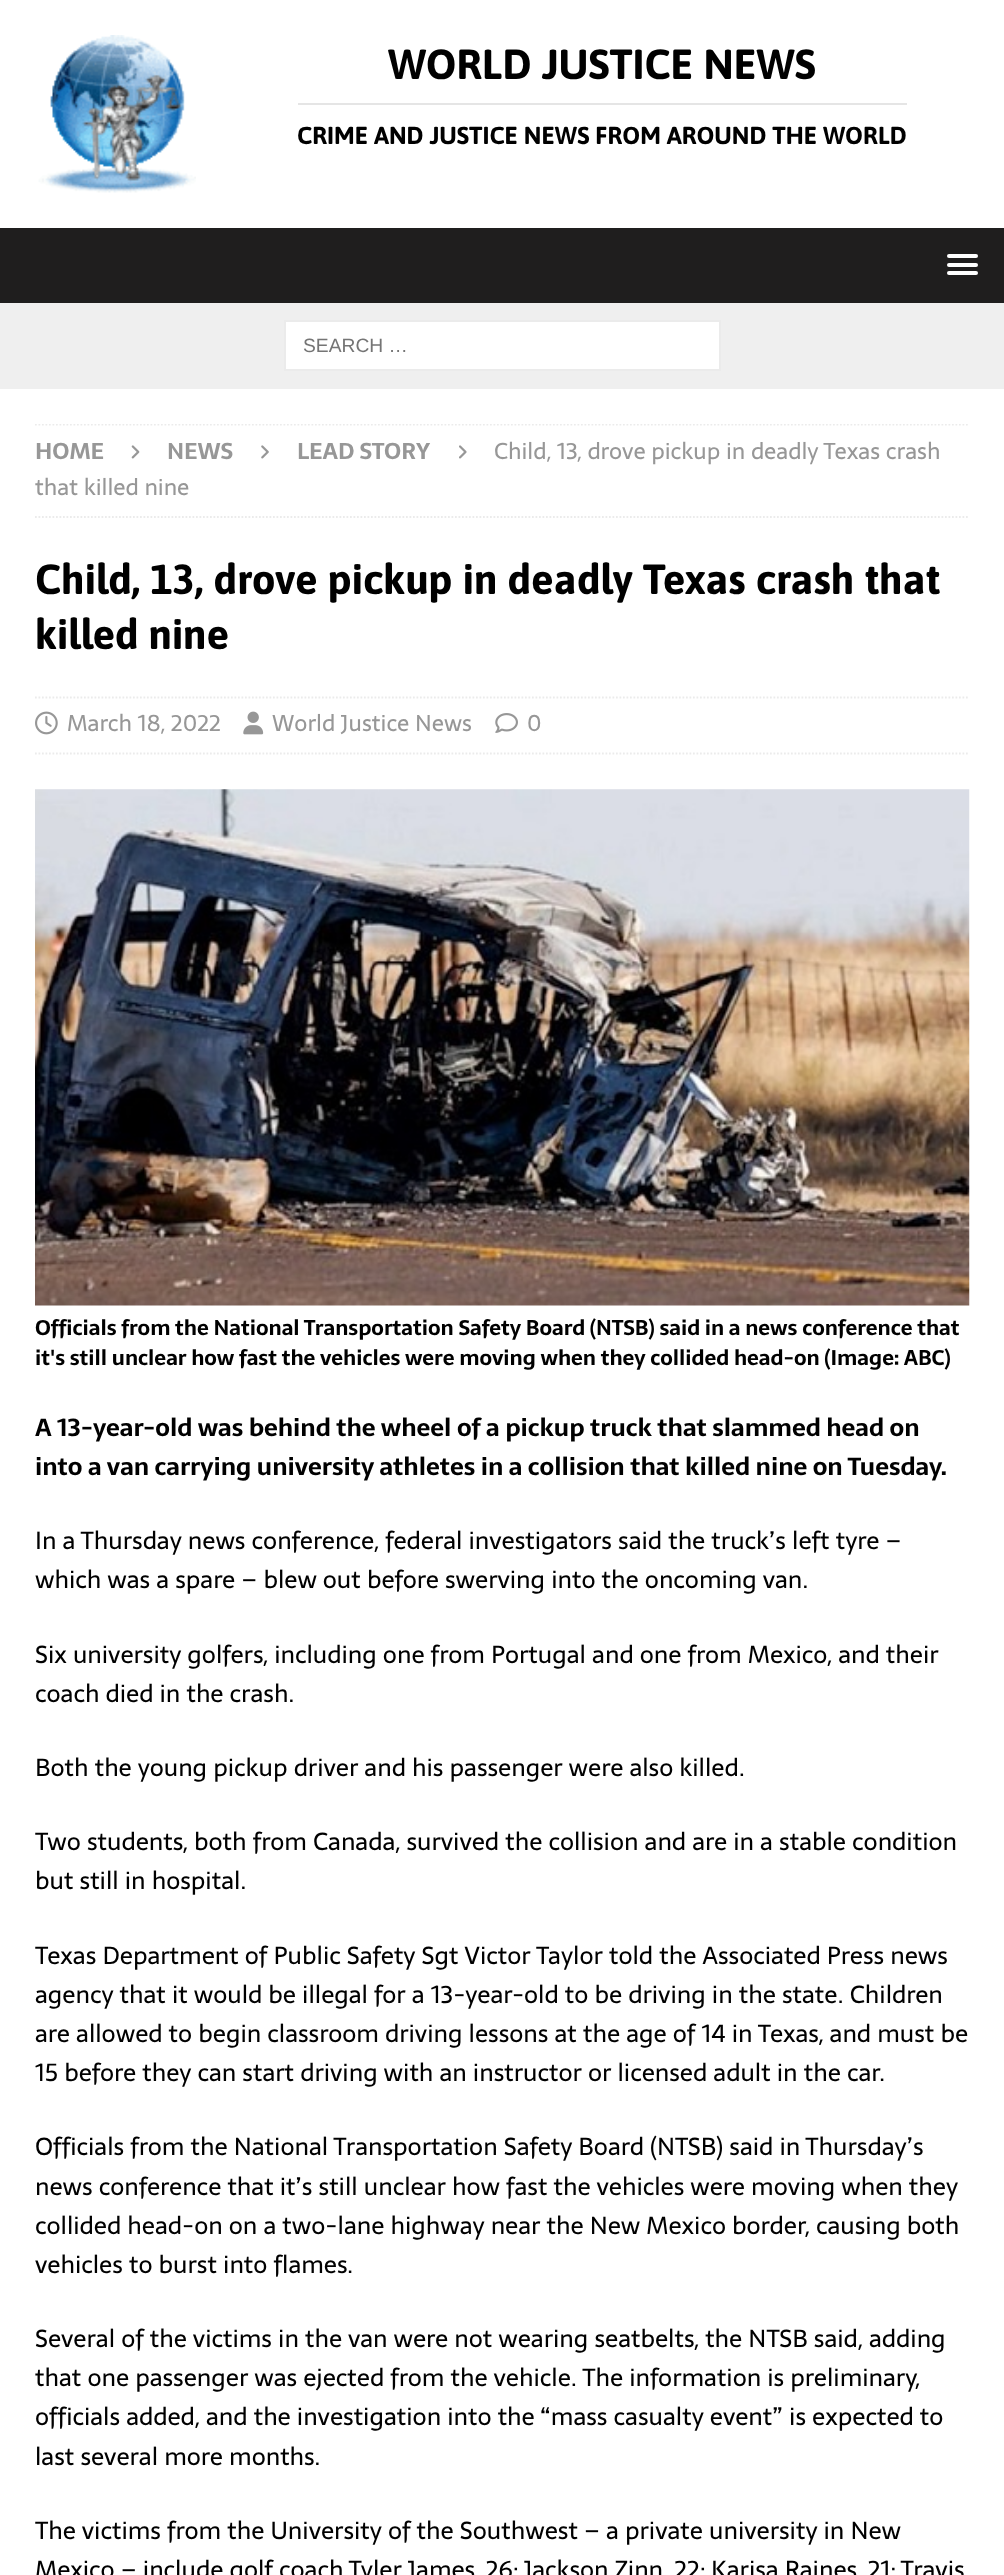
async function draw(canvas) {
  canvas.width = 1004;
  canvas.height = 2575;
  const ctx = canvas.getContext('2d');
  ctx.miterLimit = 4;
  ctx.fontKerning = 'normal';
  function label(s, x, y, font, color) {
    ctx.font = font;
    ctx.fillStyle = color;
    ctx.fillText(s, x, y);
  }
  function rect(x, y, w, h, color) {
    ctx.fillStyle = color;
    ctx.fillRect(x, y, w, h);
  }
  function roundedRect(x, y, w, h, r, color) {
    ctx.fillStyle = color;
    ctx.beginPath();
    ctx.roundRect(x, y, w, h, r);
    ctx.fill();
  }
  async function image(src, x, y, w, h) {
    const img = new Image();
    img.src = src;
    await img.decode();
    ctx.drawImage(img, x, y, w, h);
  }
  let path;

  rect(0, 0, 1004, 2575, '#efefef');
  rect(0, 0, 1004, 228, '#fff');
  await image('assets/img1.png', 38, 35, 158, 158);
  label('WORLD JUSTICE NEWS', 388, 79, 'bold 42px Asap', '#000');
  rect(298, 103, 609, 2, '#e5e5e5');
  label('CRIME AND JUSTICE NEWS FROM AROUND THE WORLD', 297, 144, 'bold 24.5px Asap', '#000');
  rect(0, 228, 1004, 75, '#1f1e1e');
  roundedRect(947, 254, 31, 4, 2, '#fff');
  roundedRect(947, 263, 31, 4, 2, '#fff');
  roundedRect(947, 271, 31, 4, 2, '#fff');
  ctx.beginPath();
  ctx.rect(285, 321, 435, 49);
  ctx.fill();
  ctx.strokeStyle = '#ebebeb';
  ctx.lineWidth = 2;
  ctx.stroke();
  label('SEARCH …', 303, 352, '19.25px Liberation Sans', '#757575');
  rect(0, 389, 1004, 2186, '#fff');
  ctx.save();
  ctx.beginPath();
  ctx.rect(35, 424, 935, 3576);
  ctx.clip();
  path = new Path2D('M35 424.5H969.5');
  ctx.lineWidth = 1.8;
  ctx.setLineDash([1.75, 1.75]);
  ctx.stroke(path);
  ctx.restore();
  path = new Path2D('M35 517H969.5');
  ctx.lineWidth = 1.8;
  ctx.setLineDash([1.75, 1.75]);
  ctx.stroke(path);
  label('HOME', 35, 459, 'bold 22.75px Sarala', '#979797');
  await image('assets/img2.png', 131, 445, 9, 14);
  label('NEWS', 167, 459, 'bold 22.75px Sarala', '#979797');
  await image('assets/img3.png', 261, 445, 8, 14);
  label('LEAD STORY', 297, 459, 'bold 22.75px Sarala', '#979797');
  await image('assets/img4.png', 459, 445, 8, 14);
  label('Child, 13, drove pickup in deadly Texas crash', 494, 459, '22.75px Sarala', '#979797');
  label('that killed nine', 35, 495, '22.75px Sarala', '#979797');
  label('Child, 13, drove pickup in deadly Texas crash that', 35, 594, 'bold 42px Asap', '#000');
  label('killed nine', 35, 649, 'bold 42px Asap', '#000');
  path = new Path2D('M35 697.5H969.5');
  ctx.stroke(path);
  path = new Path2D('M35 753.5H969.5');
  ctx.stroke(path);
  await image('assets/img5.png', 35, 711, 23, 24);
  label('March 18, 2022', 67, 731, '22.75px Sarala', '#979797');
  await image('assets/img6.png', 243, 711, 21, 24);
  label('World Justice News', 272, 731, '22.75px Sarala', '#979797');
  await image('assets/img7.png', 495, 713, 23, 20);
  label('0', 527, 731, '22.75px Sarala', '#979797');
  await image('assets/img8.png', 35, 789, 935, 517);
  label('Officials from the National Transportation Safety Board (NTSB) said in a news conference that', 35, 1335, 'bold 21px Sarala', '#000');
  label('it\'s still unclear how fast the vehicles were moving when they collided head-on (Image: ABC)', 35, 1365, 'bold 21px Sarala', '#000');
  label('A 13-year-old was behind the wheel of a pickup truck that slammed head on', 35, 1436, 'bold 24.5px Sarala', '#000');
  label('into a van carrying university athletes in a collision that killed nine on Tuesday.', 35, 1475, 'bold 24.5px Sarala', '#000');
  label('In a Thursday news conference, federal investigators said the truck’s left tyre –', 35, 1549, '24.5px Sarala', '#000');
  label('which was a spare – blew out before swerving into the oncoming van.', 35, 1588, '24.5px Sarala', '#000');
  label('Six university golfers, including one from Portugal and one from Mexico, and their', 35, 1663, '24.5px Sarala', '#000');
  label('coach died in the crash.', 35, 1702, '24.5px Sarala', '#000');
  label('Both the young pickup driver and his passenger were also killed.', 35, 1776, '24.5px Sarala', '#000');
  label('Two students, both from Canada, survived the collision and are in a stable condition', 35, 1850, '24.5px Sarala', '#000');
  label('but still in hospital.', 35, 1889, '24.5px Sarala', '#000');
  label('Texas Department of Public Safety Sgt Victor Taylor told the Associated Press news', 35, 1964, '24.5px Sarala', '#000');
  label('agency that it would be illegal for a 13-year-old to be driving in the state. Children', 35, 2003, '24.5px Sarala', '#000');
  label('are allowed to begin classroom driving lessons at the age of 14 in Texas, and must be', 35, 2042, '24.5px Sarala', '#000');
  label('15 before they can start driving with an instructor or licensed adult in the car.', 35, 2081, '24.5px Sarala', '#000');
  label('Officials from the National Transportation Safety Board (NTSB) said in Thursday’s', 35, 2155, '24.5px Sarala', '#000');
  label('news conference that it’s still unclear how fast the vehicles were moving when they', 35, 2195, '24.5px Sarala', '#000');
  label('collided head-on on a two-lane highway near the New Mexico border, causing both', 35, 2234, '24.5px Sarala', '#000');
  label('vehicles to burst into flames.', 35, 2273, '24.5px Sarala', '#000');
  label('Several of the victims in the van were not wearing seatbelts, the NTSB said, adding', 35, 2347, '24.5px Sarala', '#000');
  label('that one passenger was ejected from the vehicle. The information is preliminary,', 35, 2386, '24.5px Sarala', '#000');
  label('officials added, and the investigation into the “mass casualty event” is expected to', 35, 2425, '24.5px Sarala', '#000');
  label('last several more months.', 35, 2465, '24.5px Sarala', '#000');
  label('The victims from the University of the Southwest – a private university in New', 35, 2539, '24.5px Sarala', '#000');
  label('Mexico – include golf coach Tyler James, 26; Jackson Zinn, 22; Karisa Raines, 21; Travis', 35, 2578, '24.5px Sarala', '#000');
}

draw(document.querySelector('canvas'));
